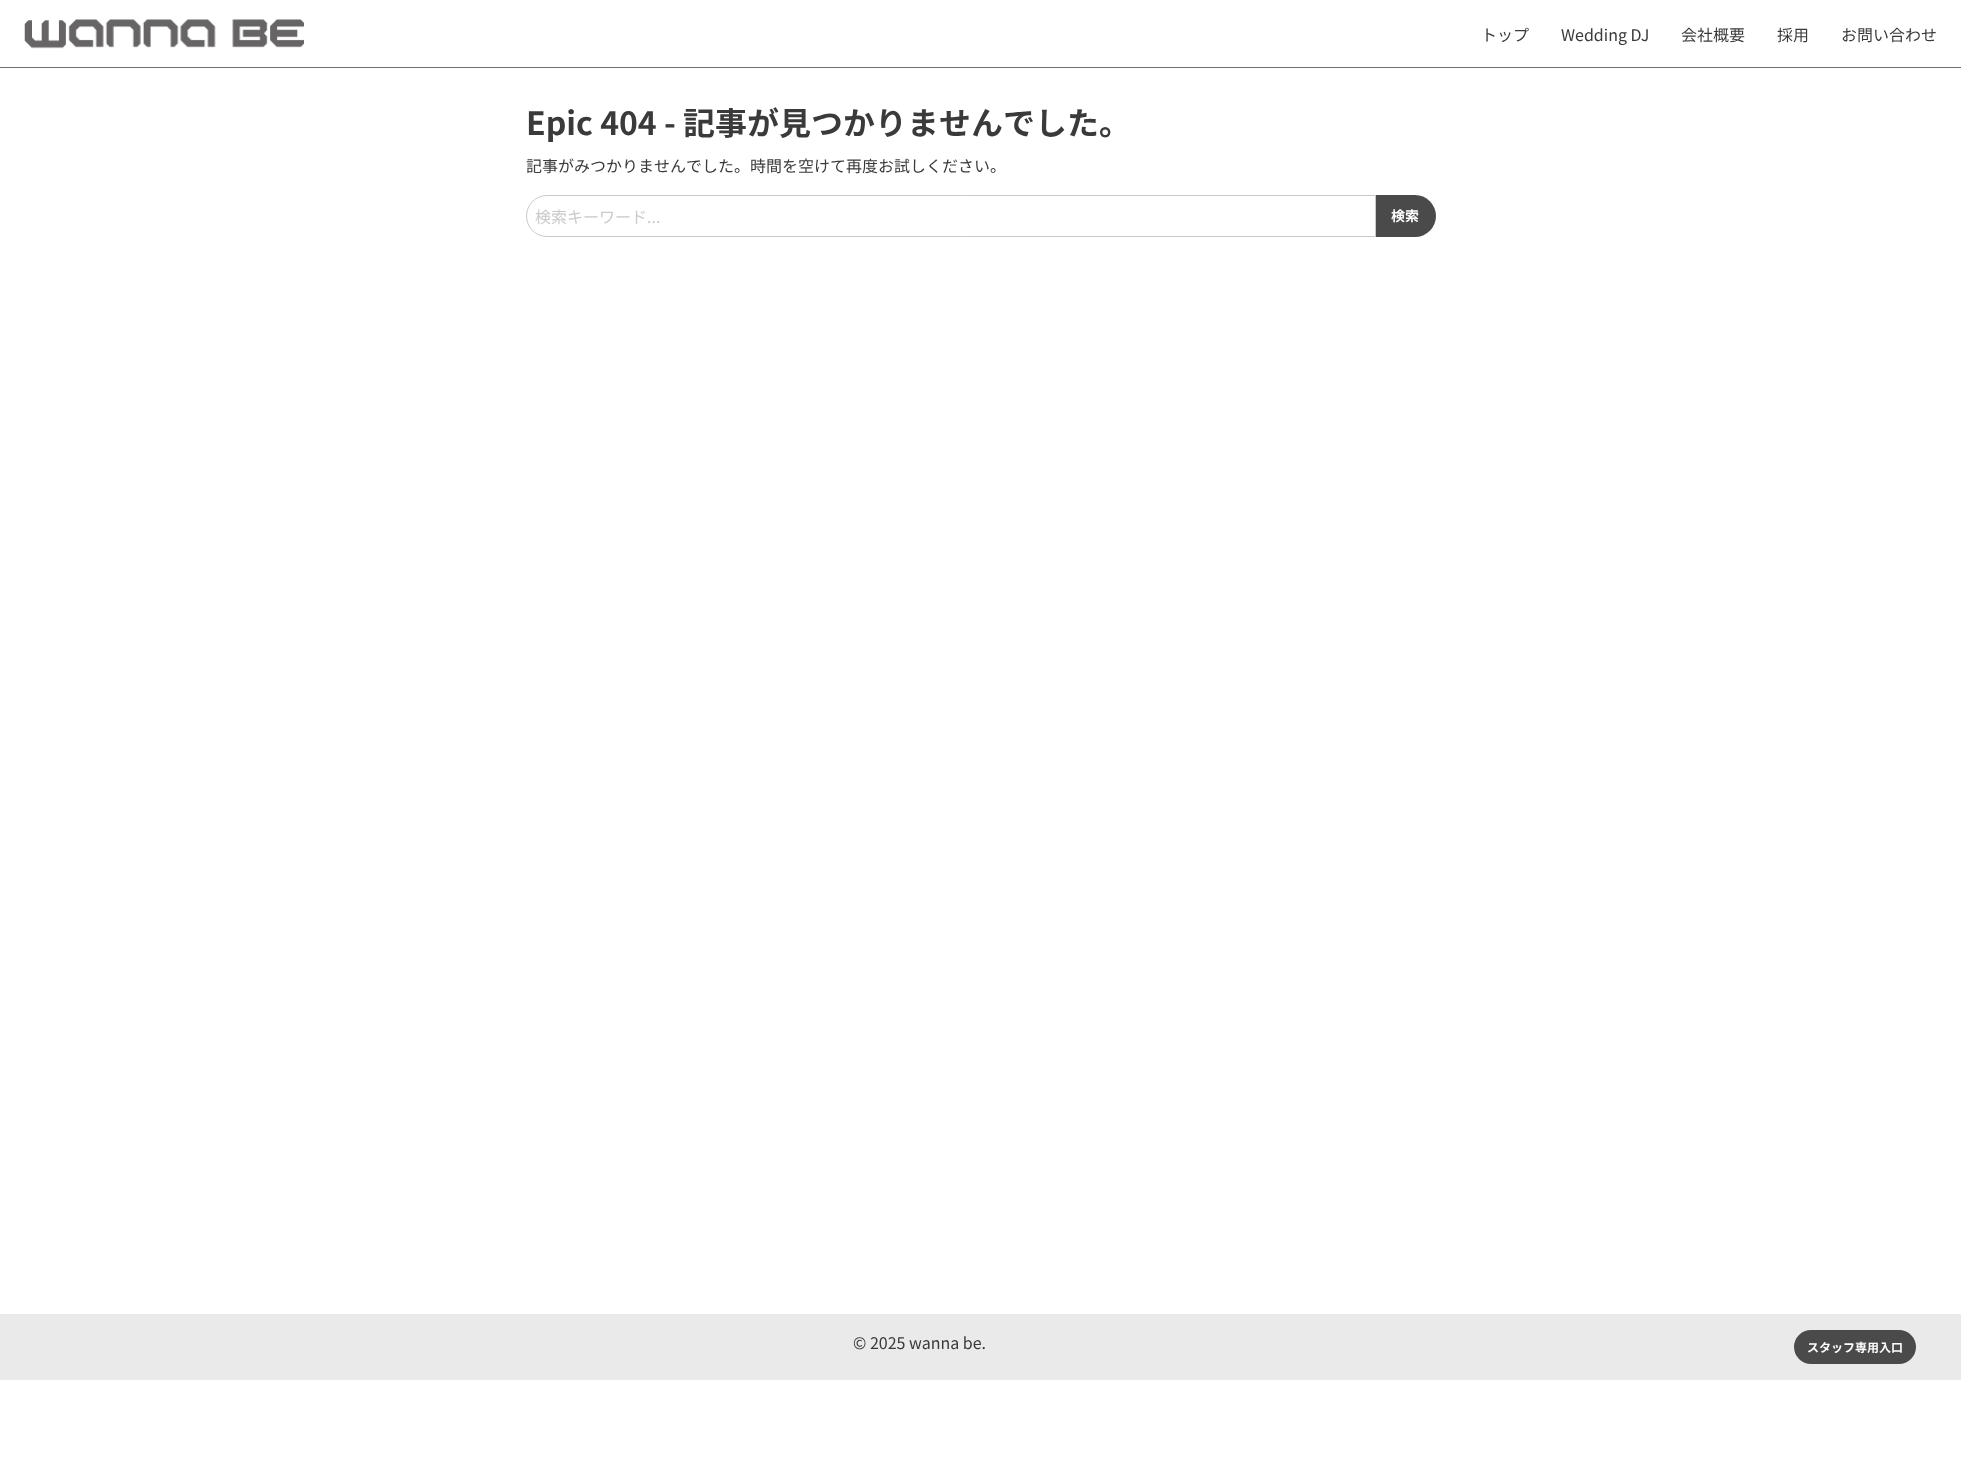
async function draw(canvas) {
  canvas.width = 1961;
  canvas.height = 1464;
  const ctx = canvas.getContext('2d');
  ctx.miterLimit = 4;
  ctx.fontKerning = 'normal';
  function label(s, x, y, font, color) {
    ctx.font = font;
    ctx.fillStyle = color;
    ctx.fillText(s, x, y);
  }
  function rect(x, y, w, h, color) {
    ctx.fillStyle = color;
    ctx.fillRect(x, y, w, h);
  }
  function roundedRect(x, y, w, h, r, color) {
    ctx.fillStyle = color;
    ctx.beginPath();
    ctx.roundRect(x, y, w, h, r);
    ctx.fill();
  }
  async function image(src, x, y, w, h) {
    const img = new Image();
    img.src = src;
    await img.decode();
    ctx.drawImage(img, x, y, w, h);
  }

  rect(0, 0, 1961, 1464, '#fff');
  rect(0, 67, 1961, 1, '#727171');
  await image('assets/img1.png', 24, 19, 280, 30);
  label('トップ', 1481, 41, '16px Noto Sans JP', '#3a3a3a');
  label('Wedding DJ', 1561, 41, '16px Noto Sans JP', '#3a3a3a');
  label('会社概要', 1681, 41, '16px Noto Sans JP', '#3a3a3a');
  label('採用', 1777, 41, '16px Noto Sans JP', '#3a3a3a');
  label('お問い合わせ', 1841, 41, '16px Noto Sans JP', '#3a3a3a');
  label('Epic 404 - 記事が見つかりませんでした。', 526, 135, 'bold 32px Noto Sans JP', '#3a3a3a');
  label('記事がみつかりませんでした。時間を空けて再度お試しください。', 526, 172, '16px Noto Sans JP', '#3a3a3a');
  ctx.beginPath();
  ctx.roundRect(526.5, 195.5, 849, 41, [20.5, 0, 0, 20.5]);
  ctx.strokeStyle = '#cacaca';
  ctx.stroke();
  label('検索キーワード...', 535, 223, '16px Noto Sans JP', '#cacaca');
  ctx.fillStyle = '#4a4a4a';
  ctx.beginPath();
  ctx.roundRect(1376, 195, 60, 42, [0, 21, 21, 0]);
  ctx.fill();
  label('検索', 1391, 221, 'bold 14px Noto Sans JP', '#fefefe');
  rect(0, 1314, 1961, 66, '#eaeaea');
  label('© 2025 wanna be.', 853, 1349, '16px Noto Sans JP', '#3a3a3a');
  roundedRect(1794, 1330, 122, 34, 17, '#4a4a4a');
  label('スタッフ専用入口', 1807, 1352, 'bold 12px Noto Sans JP', '#fefefe');
}

draw(document.querySelector('canvas'));
